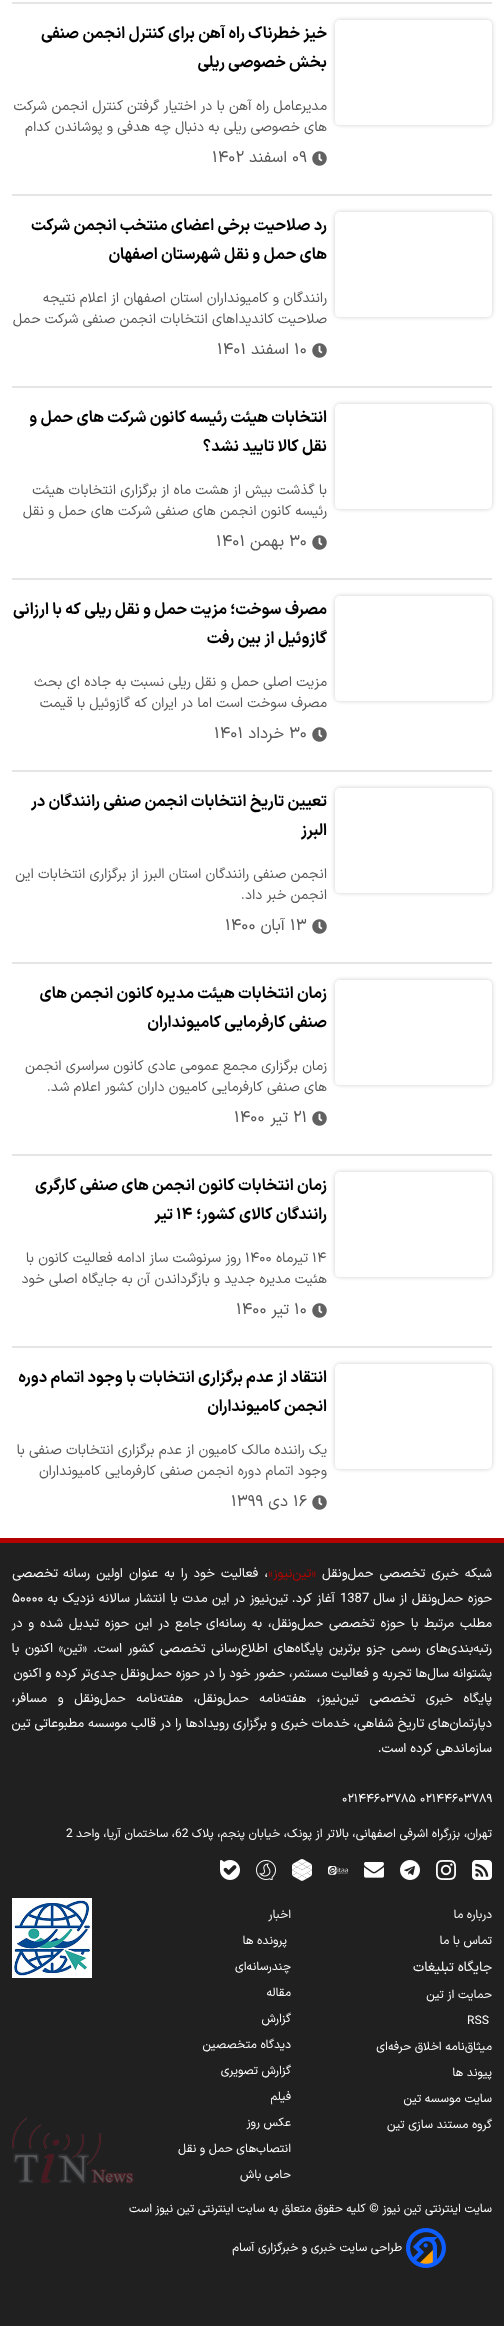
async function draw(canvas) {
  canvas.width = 504;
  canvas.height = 2326;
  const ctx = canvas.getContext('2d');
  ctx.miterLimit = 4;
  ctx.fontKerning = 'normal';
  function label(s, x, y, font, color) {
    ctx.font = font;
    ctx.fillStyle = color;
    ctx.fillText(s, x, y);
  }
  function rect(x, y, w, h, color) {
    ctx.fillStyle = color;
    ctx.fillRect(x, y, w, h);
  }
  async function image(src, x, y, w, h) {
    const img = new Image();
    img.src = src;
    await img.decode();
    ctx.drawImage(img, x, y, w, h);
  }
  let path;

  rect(0, 0, 504, 2326, '#fff');
  rect(12, 2, 480, 2, '#e5e5e5');
  rect(12, 194, 480, 2, '#e5e5e5');
  ctx.save();
  path = new Path2D('M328 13H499V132H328ZM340 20H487C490 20 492 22 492 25V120C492 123 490 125 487 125H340C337 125 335 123 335 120V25C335 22 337 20 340 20Z');
  ctx.clip(path, 'evenodd');
  ctx.fillStyle = '#ccc';
  ctx.filter = 'blur(2px)';
  ctx.beginPath();
  ctx.roundRect(335, 20, 157, 105, 5);
  ctx.fill();
  ctx.filter = 'none';
  ctx.restore();
  ctx.direction = 'rtl';
  label('خیز خطرناک راه آهن برای کنترل انجمن صنفی', 327, 38, 'bold 16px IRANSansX', '#000');
  label('بخش خصوصی ریلی', 327, 67, 'bold 16px IRANSansX', '#000');
  label('مدیرعامل راه آهن با در اختیار گرفتن کنترل انجمن شرکت', 327, 110, '14px IRANSansX', '#565656');
  label('های خصوصی ریلی به دنبال چه هدفی و پوشاندن کدام', 327, 131, '14px IRANSansX', '#565656');
  await image('assets/img1.png', 312, 151, 15, 15);
  ctx.direction = 'ltr';
  label('۰۹', 292, 162, '16px IRANSansX', '#565656');
  ctx.direction = 'rtl';
  label('اسفند', 287, 162, '16px IRANSansX', '#565656');
  ctx.direction = 'ltr';
  label('۱۴۰۲', 212, 162, '16px IRANSansX', '#565656');
  rect(12, 386, 480, 2, '#e5e5e5');
  ctx.save();
  path = new Path2D('M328 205H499V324H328ZM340 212H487C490 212 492 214 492 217V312C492 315 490 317 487 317H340C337 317 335 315 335 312V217C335 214 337 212 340 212Z');
  ctx.clip(path, 'evenodd');
  ctx.fillStyle = '#ccc';
  ctx.filter = 'blur(2px)';
  ctx.beginPath();
  ctx.roundRect(335, 212, 157, 105, 5);
  ctx.fill();
  ctx.filter = 'none';
  ctx.restore();
  ctx.direction = 'rtl';
  label('رد صلاحیت برخی اعضای منتخب انجمن شرکت', 327, 230, 'bold 16px IRANSansX', '#000');
  label('های حمل و نقل شهرستان اصفهان', 327, 259, 'bold 16px IRANSansX', '#000');
  label('رانندگان و کامیونداران استان اصفهان از اعلام نتیجه', 327, 302, '14px IRANSansX', '#565656');
  label('صلاحیت کاندیداهای انتخابات انجمن صنفی شرکت حمل', 327, 323, '14px IRANSansX', '#565656');
  await image('assets/img1.png', 312, 343, 15, 15);
  ctx.direction = 'ltr';
  label('۱۰', 294, 354, '16px IRANSansX', '#565656');
  ctx.direction = 'rtl';
  label('اسفند', 289, 354, '16px IRANSansX', '#565656');
  ctx.direction = 'ltr';
  label('۱۴۰۱', 217, 354, '16px IRANSansX', '#565656');
  rect(12, 578, 480, 2, '#e5e5e5');
  ctx.save();
  path = new Path2D('M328 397H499V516H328ZM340 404H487C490 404 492 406 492 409V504C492 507 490 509 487 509H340C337 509 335 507 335 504V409C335 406 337 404 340 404Z');
  ctx.clip(path, 'evenodd');
  ctx.fillStyle = '#ccc';
  ctx.filter = 'blur(2px)';
  ctx.beginPath();
  ctx.roundRect(335, 404, 157, 105, 5);
  ctx.fill();
  ctx.filter = 'none';
  ctx.restore();
  ctx.direction = 'rtl';
  label('انتخابات هیئت رئیسه کانون شرکت های حمل و', 327, 422, 'bold 16px IRANSansX', '#000');
  label('نقل کالا تایید نشد؟', 327, 451, 'bold 16px IRANSansX', '#000');
  label('با گذشت بیش از هشت ماه از برگزاری انتخابات هیئت', 327, 494, '14px IRANSansX', '#565656');
  label('رئیسه کانون انجمن های صنفی شرکت های حمل و نقل', 327, 515, '14px IRANSansX', '#565656');
  await image('assets/img1.png', 312, 535, 15, 15);
  ctx.direction = 'ltr';
  label('۳۰', 289, 546, '16px IRANSansX', '#565656');
  ctx.direction = 'rtl';
  label('بهمن', 284, 546, '16px IRANSansX', '#565656');
  ctx.direction = 'ltr';
  label('۱۴۰۱', 216, 546, '16px IRANSansX', '#565656');
  rect(12, 770, 480, 2, '#e5e5e5');
  ctx.save();
  path = new Path2D('M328 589H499V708H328ZM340 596H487C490 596 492 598 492 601V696C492 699 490 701 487 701H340C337 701 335 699 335 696V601C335 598 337 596 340 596Z');
  ctx.clip(path, 'evenodd');
  ctx.fillStyle = '#ccc';
  ctx.filter = 'blur(2px)';
  ctx.beginPath();
  ctx.roundRect(335, 596, 157, 105, 5);
  ctx.fill();
  ctx.filter = 'none';
  ctx.restore();
  ctx.direction = 'rtl';
  label('مصرف سوخت؛ مزیت حمل و نقل ریلی که با ارزانی', 327, 614, 'bold 16px IRANSansX', '#000');
  label('گازوئیل از بین رفت', 327, 643, 'bold 16px IRANSansX', '#000');
  label('مزیت اصلی حمل و نقل ریلی نسبت به جاده ای بحث', 327, 686, '14px IRANSansX', '#565656');
  label('مصرف سوخت است اما در ایران که گازوئیل با قیمت', 327, 707, '14px IRANSansX', '#565656');
  await image('assets/img1.png', 312, 727, 15, 15);
  ctx.direction = 'ltr';
  label('۳۰', 289, 738, '16px IRANSansX', '#565656');
  ctx.direction = 'rtl';
  label('خرداد', 284, 738, '16px IRANSansX', '#565656');
  ctx.direction = 'ltr';
  label('۱۴۰۱', 214, 738, '16px IRANSansX', '#565656');
  rect(12, 962, 480, 2, '#e5e5e5');
  ctx.save();
  path = new Path2D('M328 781H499V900H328ZM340 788H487C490 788 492 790 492 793V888C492 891 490 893 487 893H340C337 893 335 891 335 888V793C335 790 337 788 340 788Z');
  ctx.clip(path, 'evenodd');
  ctx.fillStyle = '#ccc';
  ctx.filter = 'blur(2px)';
  ctx.beginPath();
  ctx.roundRect(335, 788, 157, 105, 5);
  ctx.fill();
  ctx.filter = 'none';
  ctx.restore();
  ctx.direction = 'rtl';
  label('تعیین تاریخ انتخابات انجمن صنفی رانندگان در', 327, 806, 'bold 16px IRANSansX', '#000');
  label('البرز', 327, 835, 'bold 16px IRANSansX', '#000');
  label('انجمن صنفی رانندگان استان البرز از برگزاری انتخابات این', 327, 878, '14px IRANSansX', '#565656');
  label('انجمن خبر داد.', 327, 899, '14px IRANSansX', '#565656');
  await image('assets/img1.png', 312, 919, 15, 15);
  ctx.direction = 'ltr';
  label('۱۳', 290, 930, '16px IRANSansX', '#565656');
  ctx.direction = 'rtl';
  label('آبان', 285, 930, '16px IRANSansX', '#565656');
  ctx.direction = 'ltr';
  label('۱۴۰۰', 225, 930, '16px IRANSansX', '#565656');
  rect(12, 1154, 480, 2, '#e5e5e5');
  ctx.save();
  path = new Path2D('M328 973H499V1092H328ZM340 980H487C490 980 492 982 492 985V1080C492 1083 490 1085 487 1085H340C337 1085 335 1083 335 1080V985C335 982 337 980 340 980Z');
  ctx.clip(path, 'evenodd');
  ctx.fillStyle = '#ccc';
  ctx.filter = 'blur(2px)';
  ctx.beginPath();
  ctx.roundRect(335, 980, 157, 105, 5);
  ctx.fill();
  ctx.filter = 'none';
  ctx.restore();
  ctx.direction = 'rtl';
  label('زمان انتخابات هیئت مدیره کانون انجمن های', 327, 998, 'bold 16px IRANSansX', '#000');
  label('صنفی کارفرمایی کامیونداران', 327, 1027, 'bold 16px IRANSansX', '#000');
  label('زمان برگزاری مجمع عمومی عادی کانون سراسری انجمن', 327, 1070, '14px IRANSansX', '#565656');
  label('های صنفی کارفرمایی کامیون داران کشور اعلام شد.', 327, 1091, '14px IRANSansX', '#565656');
  await image('assets/img1.png', 312, 1111, 15, 15);
  ctx.direction = 'ltr';
  label('۲۱', 293, 1122, '16px IRANSansX', '#565656');
  ctx.direction = 'rtl';
  label('تیر', 288, 1122, '16px IRANSansX', '#565656');
  ctx.direction = 'ltr';
  label('۱۴۰۰', 234, 1122, '16px IRANSansX', '#565656');
  rect(12, 1346, 480, 2, '#e5e5e5');
  ctx.save();
  path = new Path2D('M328 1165H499V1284H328ZM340 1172H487C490 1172 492 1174 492 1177V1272C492 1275 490 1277 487 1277H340C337 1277 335 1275 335 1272V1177C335 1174 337 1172 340 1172Z');
  ctx.clip(path, 'evenodd');
  ctx.fillStyle = '#ccc';
  ctx.filter = 'blur(2px)';
  ctx.beginPath();
  ctx.roundRect(335, 1172, 157, 105, 5);
  ctx.fill();
  ctx.filter = 'none';
  ctx.restore();
  ctx.direction = 'rtl';
  label('زمان انتخابات کانون انجمن های صنفی کارگری', 327, 1190, 'bold 16px IRANSansX', '#000');
  label('رانندگان کالای کشور؛', 327, 1219, 'bold 16px IRANSansX', '#000');
  ctx.direction = 'ltr';
  label('۱۴', 176, 1219, 'bold 16px IRANSansX', '#000');
  ctx.direction = 'rtl';
  label('تیر', 173, 1219, 'bold 16px IRANSansX', '#000');
  ctx.direction = 'ltr';
  label('۱۴', 312, 1262, '14px IRANSansX', '#565656');
  ctx.direction = 'rtl';
  label('تیرماه', 308, 1262, '14px IRANSansX', '#565656');
  ctx.direction = 'ltr';
  label('۱۴۰۰', 245, 1262, '14px IRANSansX', '#565656');
  ctx.direction = 'rtl';
  label('روز سرنوشت ساز', 241, 1262, '14px IRANSansX', '#565656');
  label('ادامه فعالیت کانون با', 145, 1262, '14px IRANSansX', '#565656');
  label('هئیت مدیره جدید و بازگرداندن آن به جایگاه اصلی خود', 327, 1283, '14px IRANSansX', '#565656');
  await image('assets/img1.png', 312, 1303, 15, 15);
  ctx.direction = 'ltr';
  label('۱۰', 294, 1314, '16px IRANSansX', '#565656');
  ctx.direction = 'rtl';
  label('تیر', 289, 1314, '16px IRANSansX', '#565656');
  ctx.direction = 'ltr';
  label('۱۴۰۰', 236, 1314, '16px IRANSansX', '#565656');
  ctx.save();
  path = new Path2D('M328 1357H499V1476H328ZM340 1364H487C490 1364 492 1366 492 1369V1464C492 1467 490 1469 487 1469H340C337 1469 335 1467 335 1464V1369C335 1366 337 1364 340 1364Z');
  ctx.clip(path, 'evenodd');
  ctx.fillStyle = '#ccc';
  ctx.filter = 'blur(2px)';
  ctx.beginPath();
  ctx.roundRect(335, 1364, 157, 105, 5);
  ctx.fill();
  ctx.filter = 'none';
  ctx.restore();
  ctx.direction = 'rtl';
  label('انتقاد از عدم برگزاری انتخابات با وجود اتمام دوره', 327, 1382, 'bold 16px IRANSansX', '#000');
  label('انجمن کامیونداران', 327, 1411, 'bold 16px IRANSansX', '#000');
  label('یک راننده مالک کامیون از عدم برگزاری انتخابات صنفی با', 327, 1454, '14px IRANSansX', '#565656');
  label('وجود اتمام دوره انجمن صنفی کارفرمایی کامیونداران', 327, 1475, '14px IRANSansX', '#565656');
  await image('assets/img1.png', 312, 1495, 15, 15);
  ctx.direction = 'ltr';
  label('۱۶', 293, 1506, '16px IRANSansX', '#565656');
  ctx.direction = 'rtl';
  label('دی', 288, 1506, '16px IRANSansX', '#565656');
  ctx.direction = 'ltr';
  label('۱۳۹۹', 231, 1506, '16px IRANSansX', '#565656');
  rect(0, 1543, 504, 783, '#202020');
  rect(0, 1538, 504, 5, '#b30300');
  await image('assets/img2.png', 12, 2117, 122, 67);
  ctx.wordSpacing = '2.25px';
  ctx.direction = 'rtl';
  label('شبکه خبری تخصصی حمل‌ونقل', 492, 1577, '13px IRANSansX', '#fff');
  ctx.wordSpacing = '0px';
  label('«تین‌نیوز»', 316, 1577, '13px IRANSansX', '#b30300');
  ctx.wordSpacing = '2.25px';
  label('، فعالیت خود را به عنوان اولین رسانه', 268, 1577, '13px IRANSansX', '#fff');
  ctx.wordSpacing = '0px';
  label('تخصصی', 58, 1577, '13px IRANSansX', '#fff');
  ctx.wordSpacing = '0.75px';
  label('حوزه حمل‌ونقل از سال', 492, 1602, '13px IRANSansX', '#fff');
  ctx.wordSpacing = '0px';
  ctx.direction = 'ltr';
  label('1387', 340, 1602, '13px IRANSansX', '#fff');
  ctx.wordSpacing = '1px';
  ctx.direction = 'rtl';
  label('آغاز کرد.', 335, 1602, '13px IRANSansX', '#fff');
  ctx.wordSpacing = '0.75px';
  label('تین‌نیوز در این مدت با انتشار سالانه نزدیک به', 288, 1602, '13px IRANSansX', '#fff');
  ctx.wordSpacing = '0px';
  ctx.direction = 'ltr';
  label('۵۰۰۰۰', 12, 1602, '13px IRANSansX', '#fff');
  ctx.wordSpacing = '2px';
  ctx.direction = 'rtl';
  label('مطلب مرتبط با حوزه تخصصی حمل‌ونقل، به رسانه‌ای', 492, 1627, '13px IRANSansX', '#fff');
  label('جامع در این حوزه تبدیل شده و در', 202, 1627, '13px IRANSansX', '#fff');
  ctx.wordSpacing = '1.75px';
  label('رتبه‌بندی‌های رسمی جزو برترین پایگاه‌های اطلاع‌رسانی تخصصی کشور است.', 492, 1652, '13px IRANSansX', '#fff');
  label('«تین» اکنون با', 87, 1652, '13px IRANSansX', '#fff');
  ctx.wordSpacing = '0px';
  label('پشتوانه سال‌ها تجربه و فعالیت مستمر، حضور خود را در حوزه حمل‌ونقل جدی‌تر کرده و اکنون', 492, 1677, '13px IRANSansX', '#fff');
  ctx.wordSpacing = '6.75px';
  label('پایگاه خبری تخصصی تین‌نیوز، هفته‌نامه حمل‌ونقل، هفته‌نامه حمل‌ونقل و مسافر،', 492, 1702, '13px IRANSansX', '#fff');
  ctx.wordSpacing = '0px';
  label('دپارتمان‌های تاریخ شفاهی، خدمات خبری و برگزاری رویدادها را در قالب موسسه مطبوعاتی تین', 492, 1727, '13px IRANSansX', '#fff');
  label('سازماندهی کرده است.', 492, 1752, '13px IRANSansX', '#fff');
  ctx.direction = 'ltr';
  label('۰۲۱۴۴۶۰۳۷۸۹', 420, 1802, '12px IRANSansX', '#fff');
  label('۰۲۱۴۴۶۰۳۷۸۵', 342, 1802, '12px IRANSansX', '#fff');
  ctx.direction = 'rtl';
  label('تهران', 492, 1837, '12px IRANSansX', '#fff');
  ctx.direction = 'ltr';
  label('،', 464, 1837, '12px IRANSansX', '#fff');
  ctx.direction = 'rtl';
  label('بزرگراه اشرفی اصفهانی، بالاتر از پونک، خیابان پنجم، پلاک', 460, 1837, '12px IRANSansX', '#fff');
  ctx.direction = 'ltr';
  label('62', 175, 1837, '12px IRANSansX', '#fff');
  ctx.direction = 'rtl';
  label('، ساختمان آریا، واحد', 175, 1837, '12px IRANSansX', '#fff');
  ctx.direction = 'ltr';
  label('2', 66, 1837, '12px IRANSansX', '#fff');
  await image('assets/img3.png', 472, 1860, 20, 20);
  await image('assets/img4.png', 436, 1860, 20, 20);
  await image('assets/img5.png', 400, 1860, 20, 20);
  await image('assets/img6.png', 364, 1862, 20, 16);
  await image('assets/img7.png', 328, 1866, 20, 9);
  await image('assets/img8.png', 292, 1859, 20, 22);
  await image('assets/img9.png', 256, 1860, 20, 20);
  await image('assets/img10.png', 220, 1860, 20, 20);
  ctx.direction = 'rtl';
  label('درباره ما', 492, 1918, '12px IRANSansX', '#fff');
  label('تماس با ما', 492, 1944, '12px IRANSansX', '#fff');
  label('جایگاه تبلیغات', 492, 1971, '13.5px IRANSansX', '#fff');
  label('حمایت از تین', 492, 1998, '12px IRANSansX', '#fff');
  ctx.direction = 'ltr';
  label('RSS', 467, 2024, '12px IRANSansX', '#fff');
  ctx.direction = 'rtl';
  label('میثاق‌نامه اخلاق حرفه‌ای', 492, 2050, '12px IRANSansX', '#fff');
  label('پیوند ها', 492, 2076, '12px IRANSansX', '#fff');
  label('سایت موسسه تین', 492, 2102, '12px IRANSansX', '#fff');
  label('گروه مستند سازی تین', 492, 2128, '12px IRANSansX', '#fff');
  label('اخبار', 291, 1918, '12px IRANSansX', '#fff');
  label('پرونده ها', 287, 1944, '12px IRANSansX', '#fff');
  label('چندرسانه‌ای', 291, 1970, '12px IRANSansX', '#fff');
  label('مقاله', 291, 1996, '12px IRANSansX', '#fff');
  label('گزارش', 291, 2022, '12px IRANSansX', '#fff');
  label('دیدگاه متخصصین', 291, 2048, '12px IRANSansX', '#fff');
  label('گزارش تصویری', 291, 2074, '12px IRANSansX', '#fff');
  label('فیلم', 291, 2100, '12px IRANSansX', '#fff');
  label('عکس روز', 291, 2126, '12px IRANSansX', '#fff');
  label('انتصاب‌های حمل و نقل', 291, 2152, '12px IRANSansX', '#fff');
  label('حامی باش', 291, 2178, '12px IRANSansX', '#fff');
  await image('assets/img11.png', 12, 1898, 80, 80);
  label('سایت اینترنتی تین نیوز © کلیه حقوق متعلق به سایت اینترنتی تین نیوز', 492, 2212, '12px IRANSansX', '#fff');
  label('است', 152, 2212, '12px IRANSansX', '#fff');
  await image('assets/img12.png', 406, 2228, 40, 40);
  label('طراحی سایت خبری و خبرگزاری آسام', 402, 2251, '12px IRANSansX', '#fff');
}

draw(document.querySelector('canvas'));
